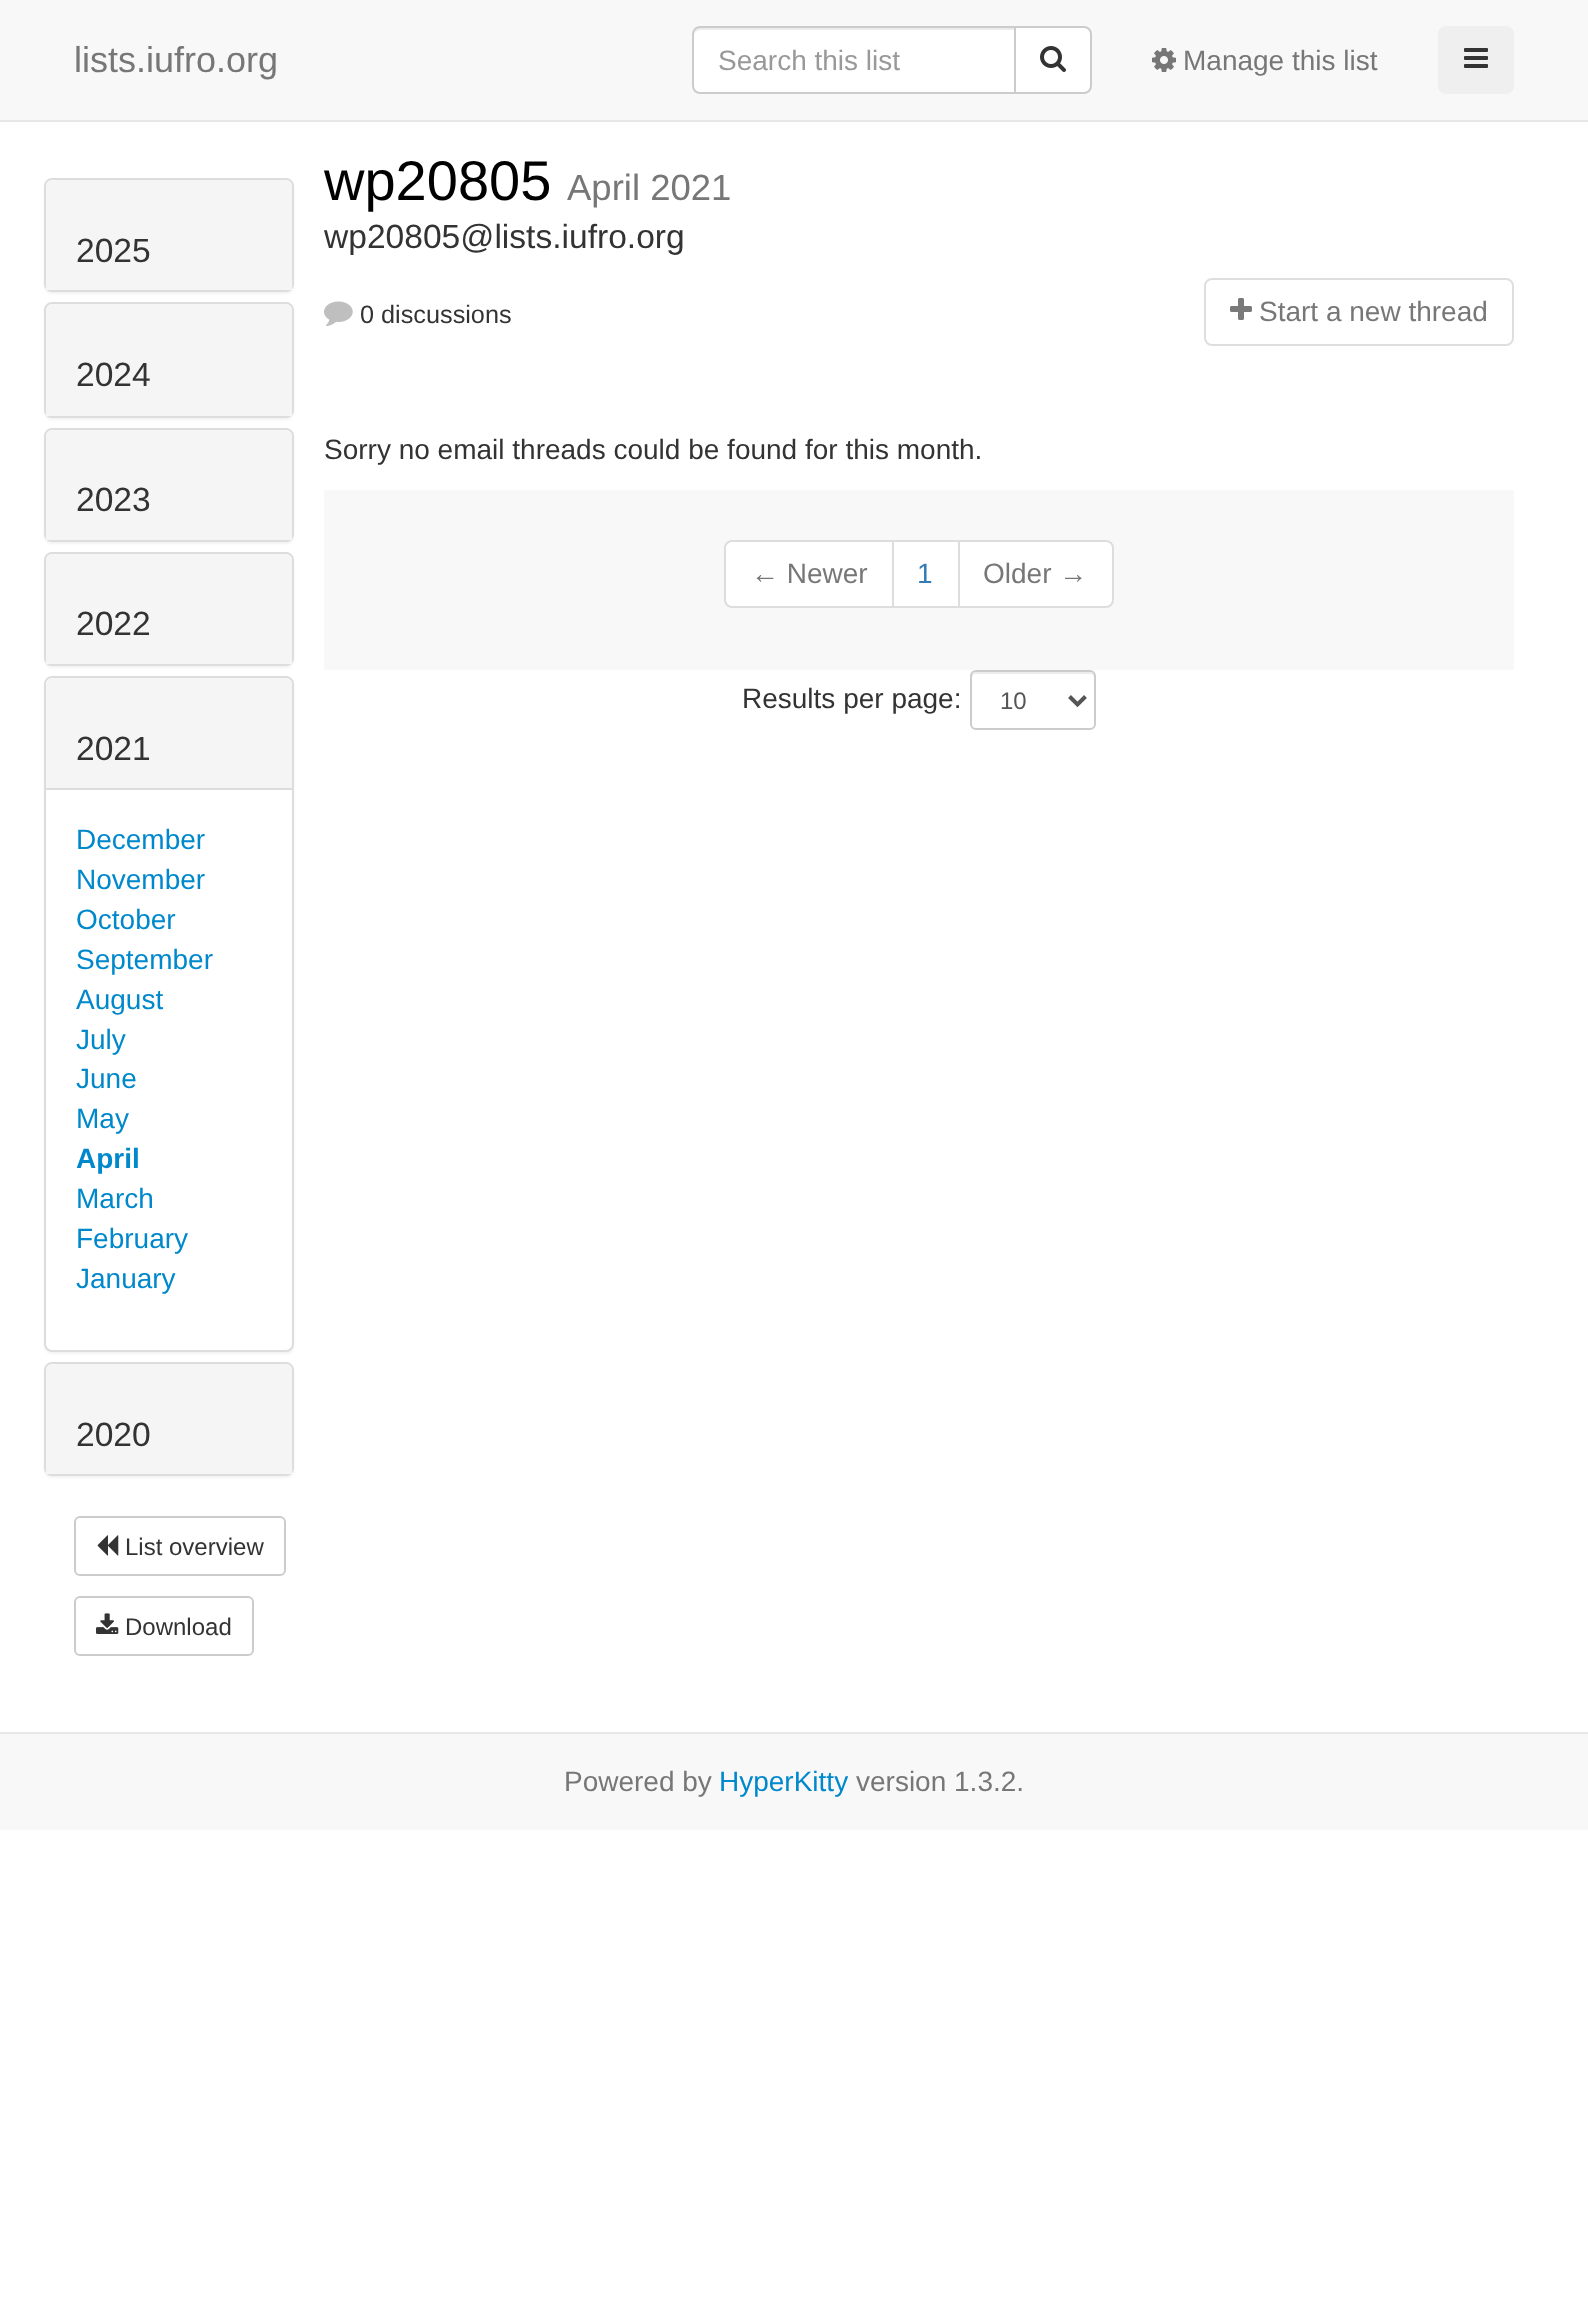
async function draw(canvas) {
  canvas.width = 1588;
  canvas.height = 2316;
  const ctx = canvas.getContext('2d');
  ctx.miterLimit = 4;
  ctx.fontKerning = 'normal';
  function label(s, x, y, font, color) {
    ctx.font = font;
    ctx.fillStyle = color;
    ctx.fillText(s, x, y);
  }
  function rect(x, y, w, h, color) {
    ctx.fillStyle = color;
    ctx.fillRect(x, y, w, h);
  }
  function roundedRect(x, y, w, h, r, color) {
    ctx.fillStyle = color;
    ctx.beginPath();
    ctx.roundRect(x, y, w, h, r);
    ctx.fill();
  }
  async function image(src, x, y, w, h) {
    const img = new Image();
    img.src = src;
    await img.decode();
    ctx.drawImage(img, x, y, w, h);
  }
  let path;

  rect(0, 0, 1588, 2316, '#fff');
  rect(0, 0, 1588, 120, '#f8f8f8');
  rect(0, 120, 1588, 2, '#e7e7e7');
  label('lists.iufro.org', 74, 72, '36px Liberation Sans', '#777');
  ctx.fillStyle = '#fff';
  ctx.beginPath();
  ctx.roundRect(692, 26, 324, 68, [8, 0, 0, 8]);
  ctx.fill();
  ctx.fillStyle = '#ececec';
  path = new Path2D('M700 30H1014V28H699C695 29 694 33 694 36C694 33 697 30 700 30Z');
  ctx.fill(path);
  ctx.beginPath();
  ctx.roundRect(693, 27, 322, 66, [7, 0, 0, 7]);
  ctx.strokeStyle = '#ccc';
  ctx.lineWidth = 2;
  ctx.stroke();
  label('Search this list', 718, 70, '28px Liberation Sans', '#999');
  ctx.fillStyle = '#fff';
  ctx.beginPath();
  ctx.roundRect(1015, 27, 76, 66, [0, 7, 7, 0]);
  ctx.fill();
  ctx.stroke();
  await image('assets/img1.png', 1040, 46, 26, 26);
  await image('assets/img2.png', 1152, 48, 24, 24);
  label('Manage this list', 1183, 70, '28px Liberation Sans', '#777');
  roundedRect(1438, 26, 76, 68, 8, '#efefef');
  await image('assets/img3.png', 1464, 48, 24, 20);
  ctx.fillStyle = '#0000000d';
  ctx.filter = 'blur(1px)';
  ctx.beginPath();
  ctx.roundRect(44, 180, 250, 114, 8);
  ctx.fill();
  ctx.filter = 'none';
  ctx.beginPath();
  ctx.roundRect(45, 179, 248, 112, 7);
  ctx.strokeStyle = '#ddd';
  ctx.stroke();
  ctx.fillStyle = '#f5f5f5';
  ctx.beginPath();
  ctx.roundRect(46, 180, 246, 110, [6, 6, 0, 0]);
  ctx.fill();
  label('2025', 76, 262, '33.6px Liberation Sans', '#333');
  ctx.fillStyle = '#0000000d';
  ctx.filter = 'blur(1px)';
  ctx.beginPath();
  ctx.roundRect(44, 304, 250, 116, 8);
  ctx.fill();
  ctx.filter = 'none';
  ctx.beginPath();
  ctx.roundRect(45, 303, 248, 114, 7);
  ctx.stroke();
  ctx.fillStyle = '#f5f5f5';
  ctx.beginPath();
  ctx.roundRect(46, 304, 246, 112, [6, 6, 0, 0]);
  ctx.fill();
  label('2024', 76, 386, '33.6px Liberation Sans', '#333');
  ctx.fillStyle = '#0000000d';
  ctx.filter = 'blur(1px)';
  ctx.beginPath();
  ctx.roundRect(44, 430, 250, 114, 8);
  ctx.fill();
  ctx.filter = 'none';
  ctx.beginPath();
  ctx.roundRect(45, 429, 248, 112, 7);
  ctx.stroke();
  ctx.fillStyle = '#f5f5f5';
  ctx.beginPath();
  ctx.roundRect(46, 430, 246, 110, [6, 6, 0, 0]);
  ctx.fill();
  label('2023', 76, 511, '33.6px Liberation Sans', '#333');
  ctx.fillStyle = '#0000000d';
  ctx.filter = 'blur(1px)';
  ctx.beginPath();
  ctx.roundRect(44, 554, 250, 114, 8);
  ctx.fill();
  ctx.filter = 'none';
  ctx.beginPath();
  ctx.roundRect(45, 553, 248, 112, 7);
  ctx.stroke();
  ctx.fillStyle = '#f5f5f5';
  ctx.beginPath();
  ctx.roundRect(46, 554, 246, 110, [6, 6, 0, 0]);
  ctx.fill();
  label('2022', 76, 635, '33.6px Liberation Sans', '#333');
  ctx.fillStyle = '#0000000d';
  ctx.filter = 'blur(1px)';
  ctx.beginPath();
  ctx.roundRect(44, 678, 250, 676, 8);
  ctx.fill();
  ctx.filter = 'none';
  ctx.fillStyle = '#fff';
  ctx.beginPath();
  ctx.roundRect(45, 677, 248, 674, 7);
  ctx.fill();
  ctx.stroke();
  ctx.fillStyle = '#f5f5f5';
  ctx.beginPath();
  ctx.roundRect(46, 678, 246, 110, [6, 6, 0, 0]);
  ctx.fill();
  label('2021', 76, 760, '33.6px Liberation Sans', '#333');
  rect(46, 788, 246, 2, '#ddd');
  label('December', 76, 849, '28px Liberation Sans', '#08c');
  label('November', 76, 889, '28px Liberation Sans', '#08c');
  label('October', 76, 929, '28px Liberation Sans', '#08c');
  label('September', 76, 969, '28px Liberation Sans', '#08c');
  label('August', 76, 1009, '28px Liberation Sans', '#08c');
  label('July', 76, 1049, '28px Liberation Sans', '#08c');
  label('June', 76, 1088, '28px Liberation Sans', '#08c');
  label('May', 76, 1128, '28px Liberation Sans', '#08c');
  label('April', 76, 1168, 'bold 28px Liberation Sans', '#08c');
  label('March', 76, 1208, '28px Liberation Sans', '#08c');
  label('February', 76, 1248, '28px Liberation Sans', '#08c');
  label('January', 76, 1288, '28px Liberation Sans', '#08c');
  ctx.fillStyle = '#0000000d';
  ctx.filter = 'blur(1px)';
  ctx.beginPath();
  ctx.roundRect(44, 1364, 250, 114, 8);
  ctx.fill();
  ctx.filter = 'none';
  ctx.beginPath();
  ctx.roundRect(45, 1363, 248, 112, 7);
  ctx.stroke();
  ctx.fillStyle = '#f5f5f5';
  ctx.beginPath();
  ctx.roundRect(46, 1364, 246, 110, [6, 6, 0, 0]);
  ctx.fill();
  label('2020', 76, 1446, '33.6px Liberation Sans', '#333');
  ctx.beginPath();
  ctx.roundRect(75, 1517, 210, 58, 5);
  ctx.strokeStyle = '#ccc';
  ctx.stroke();
  await image('assets/img4.png', 97, 1535, 22, 21);
  label('List overview', 125, 1555, '24px Liberation Sans', '#333');
  ctx.beginPath();
  ctx.roundRect(75, 1597, 178, 58, 5);
  ctx.stroke();
  await image('assets/img5.png', 96, 1613, 23, 21);
  label('Download', 125, 1635, '24px Liberation Sans', '#333');
  label('wp20805', 324, 200, '56px Liberation Sans', '#000');
  label('April 2021', 567, 200, '36.5px Liberation Sans', '#777');
  label('wp20805@lists.iufro.org', 324, 248, '33.6px Liberation Sans', '#333');
  await image('assets/img6.png', 324, 301, 29, 25);
  label('0 discussions', 360, 323, '25.25px Liberation Sans', '#333');
  ctx.beginPath();
  ctx.roundRect(1205, 279, 308, 66, 7);
  ctx.strokeStyle = '#dedede';
  ctx.stroke();
  await image('assets/img7.png', 1230, 298, 22, 22);
  label('Start a new thread', 1259, 321, '28px Liberation Sans', '#777');
  label('Sorry no email threads could be found for this month.', 324, 459, '28px Liberation Sans', '#333');
  rect(324, 490, 1190, 180, '#f8f8f8');
  ctx.fillStyle = '#fff';
  ctx.beginPath();
  ctx.roundRect(725, 541, 168, 66, [7, 0, 0, 7]);
  ctx.fill();
  ctx.strokeStyle = '#ddd';
  ctx.stroke();
  label('← Newer', 751, 583, '28px Liberation Sans', '#777');
  ctx.fillStyle = '#fff';
  ctx.beginPath();
  ctx.rect(893, 541, 66, 66);
  ctx.fill();
  ctx.stroke();
  label('1', 917, 583, '28px Liberation Sans', '#337ab7');
  ctx.fillStyle = '#fff';
  ctx.beginPath();
  ctx.roundRect(959, 541, 154, 66, [0, 7, 7, 0]);
  ctx.fill();
  ctx.stroke();
  label('Older →', 983, 583, '28px Liberation Sans', '#777');
  label('Results per page:', 742, 708, '28px Liberation Sans', '#333');
  ctx.fillStyle = '#ececec';
  path = new Path2D('M976 674H1090C1092 674 1094 676 1094 678V676C1094 674 1092 672 1090 672H976C974 672 972 674 972 676V678C972 676 974 674 976 674Z');
  ctx.fill(path);
  ctx.beginPath();
  ctx.roundRect(971, 671, 124, 58, 5);
  ctx.strokeStyle = '#ccc';
  ctx.stroke();
  path = new Path2D('M1069.5 696.5L1077.5 704.5L1085.5 696.5');
  ctx.strokeStyle = '#555';
  ctx.lineWidth = 4;
  ctx.stroke(path);
  label('10', 1000, 709, '24px Liberation Sans', '#555');
  rect(0, 1734, 1588, 96, '#f8f8f8');
  rect(0, 1732, 1588, 2, '#e7e7e7');
  label('Powered by', 564, 1791, '28px Liberation Sans', '#777');
  label('HyperKitty', 719, 1791, '28px Liberation Sans', '#08c');
  label('version 1.3.2.', 856, 1791, '28px Liberation Sans', '#777');
}

draw(document.querySelector('canvas'));
